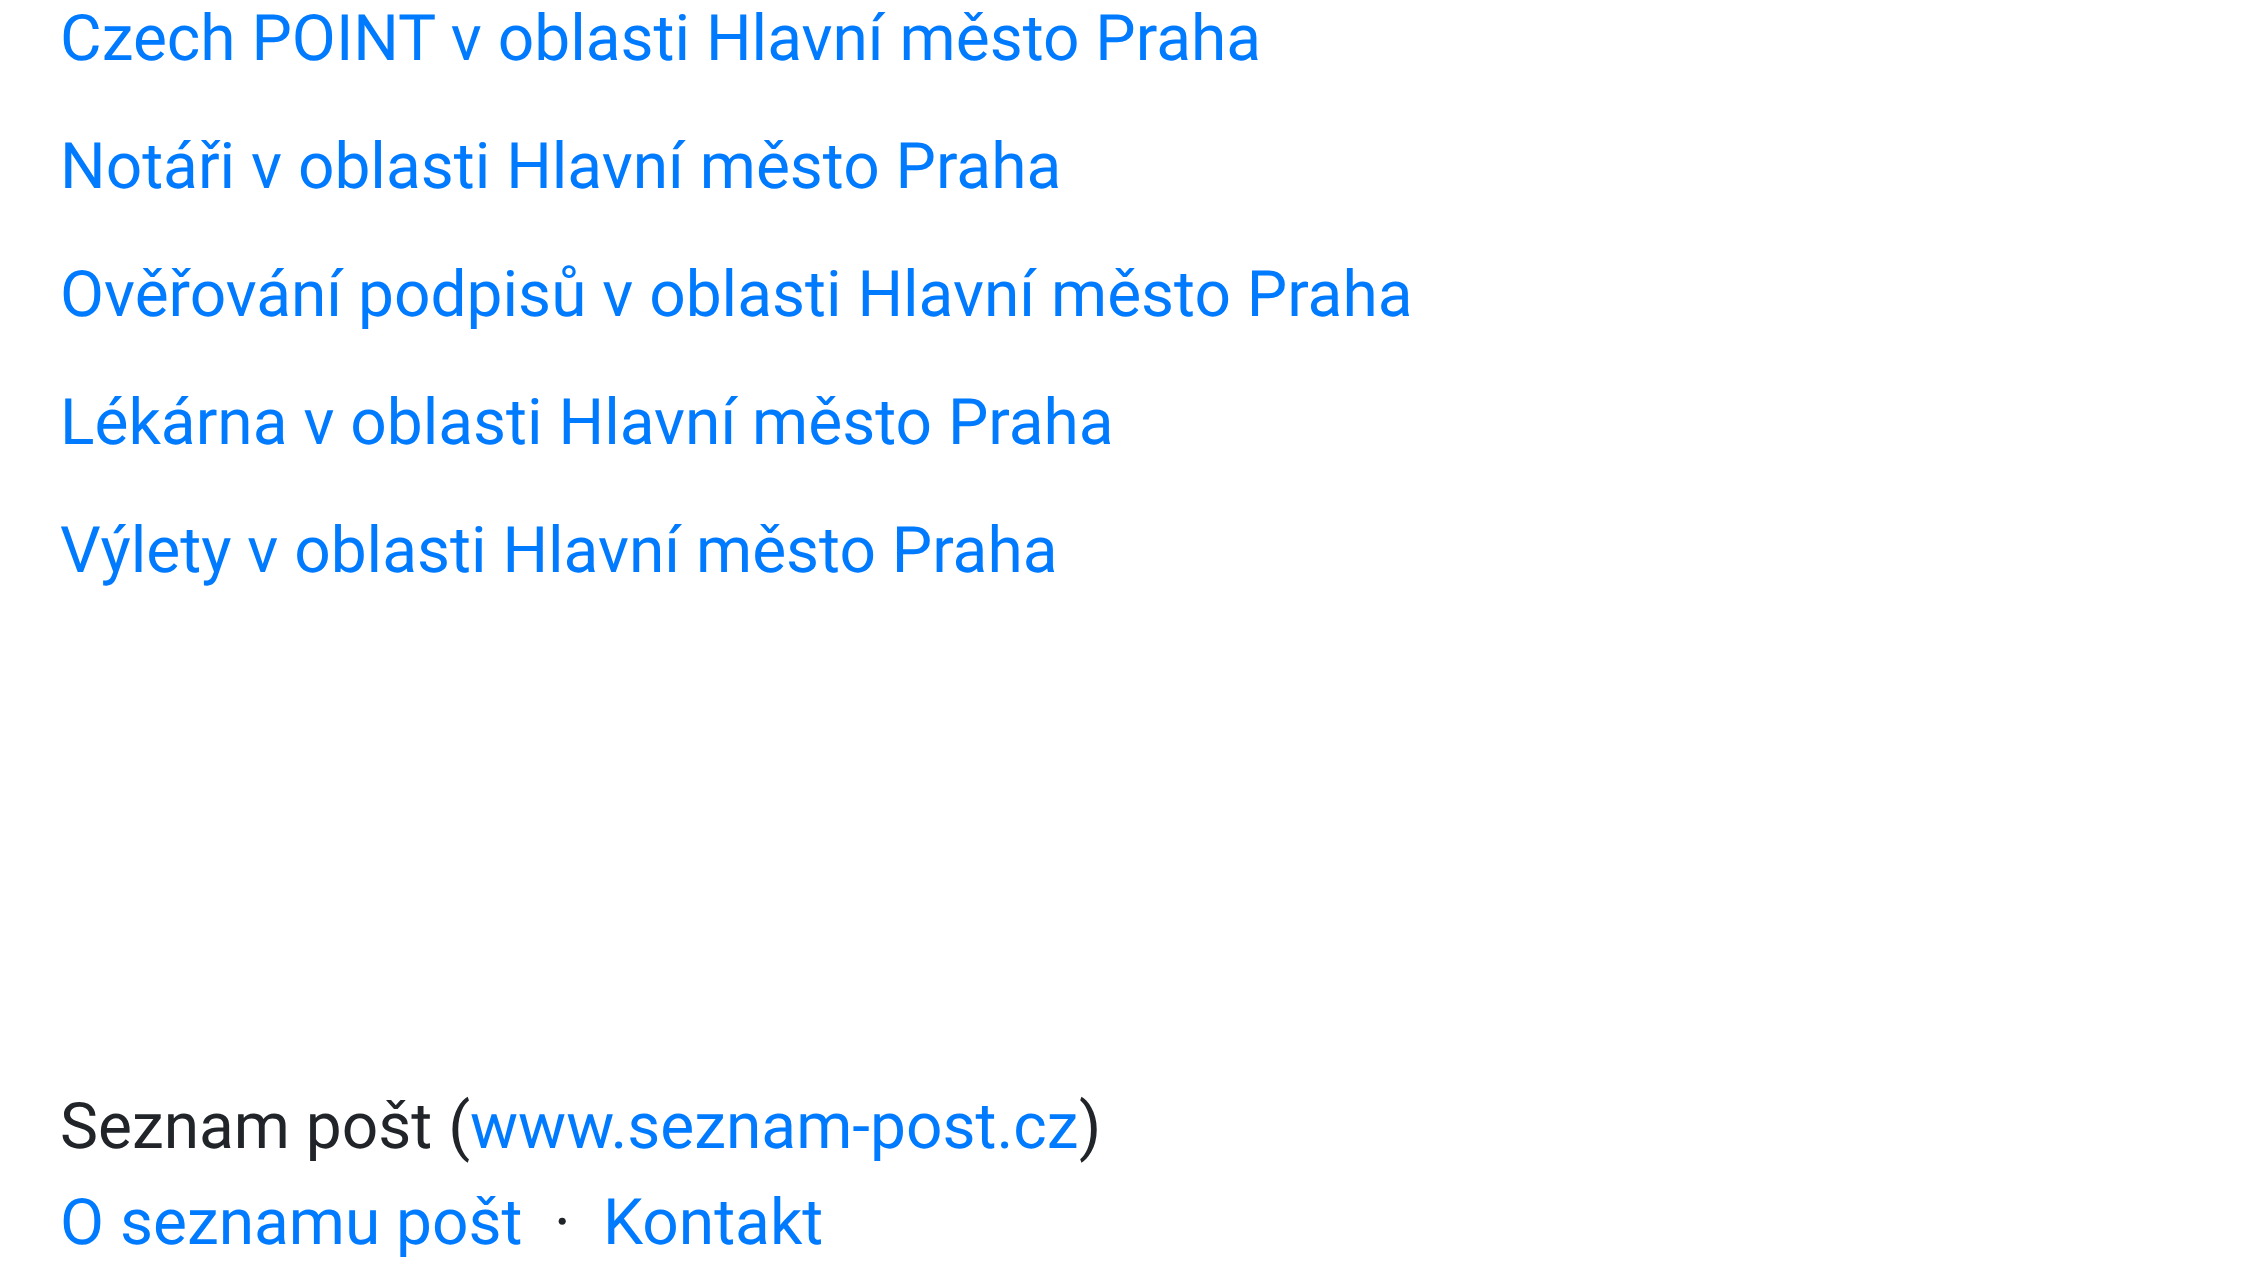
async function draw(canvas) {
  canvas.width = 2252;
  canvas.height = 1272;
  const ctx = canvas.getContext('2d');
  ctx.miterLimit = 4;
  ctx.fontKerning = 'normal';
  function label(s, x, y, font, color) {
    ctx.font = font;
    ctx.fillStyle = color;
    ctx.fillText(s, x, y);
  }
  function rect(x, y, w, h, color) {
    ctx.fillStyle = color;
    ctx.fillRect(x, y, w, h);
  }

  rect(0, 0, 2252, 1272, '#fff');
  label('Czech POINT v oblasti Hlavní město Praha', 60, 60, '64px Roboto', '#007bff');
  label('Notáři v oblasti Hlavní město Praha', 60, 188, '64px Roboto', '#007bff');
  label('Ověřování podpisů v oblasti Hlavní město Praha', 60, 316, '64px Roboto', '#007bff');
  label('Lékárna v oblasti Hlavní město Praha', 60, 444, '64px Roboto', '#007bff');
  label('Výlety v oblasti Hlavní město Praha', 60, 572, '64px Roboto', '#007bff');
  label('Seznam pošt (', 60, 1148, '64px Roboto', '#212529');
  label('www.seznam-post.cz', 470, 1148, '64px Roboto', '#007bff');
  label(')', 1079, 1148, '64px Roboto', '#212529');
  label('O seznamu pošt', 60, 1244, '64px Roboto', '#007bff');
  label('·', 554, 1244, '64px Roboto', '#212529');
  label('Kontakt', 603, 1244, '64px Roboto', '#007bff');
}

draw(document.querySelector('canvas'));
